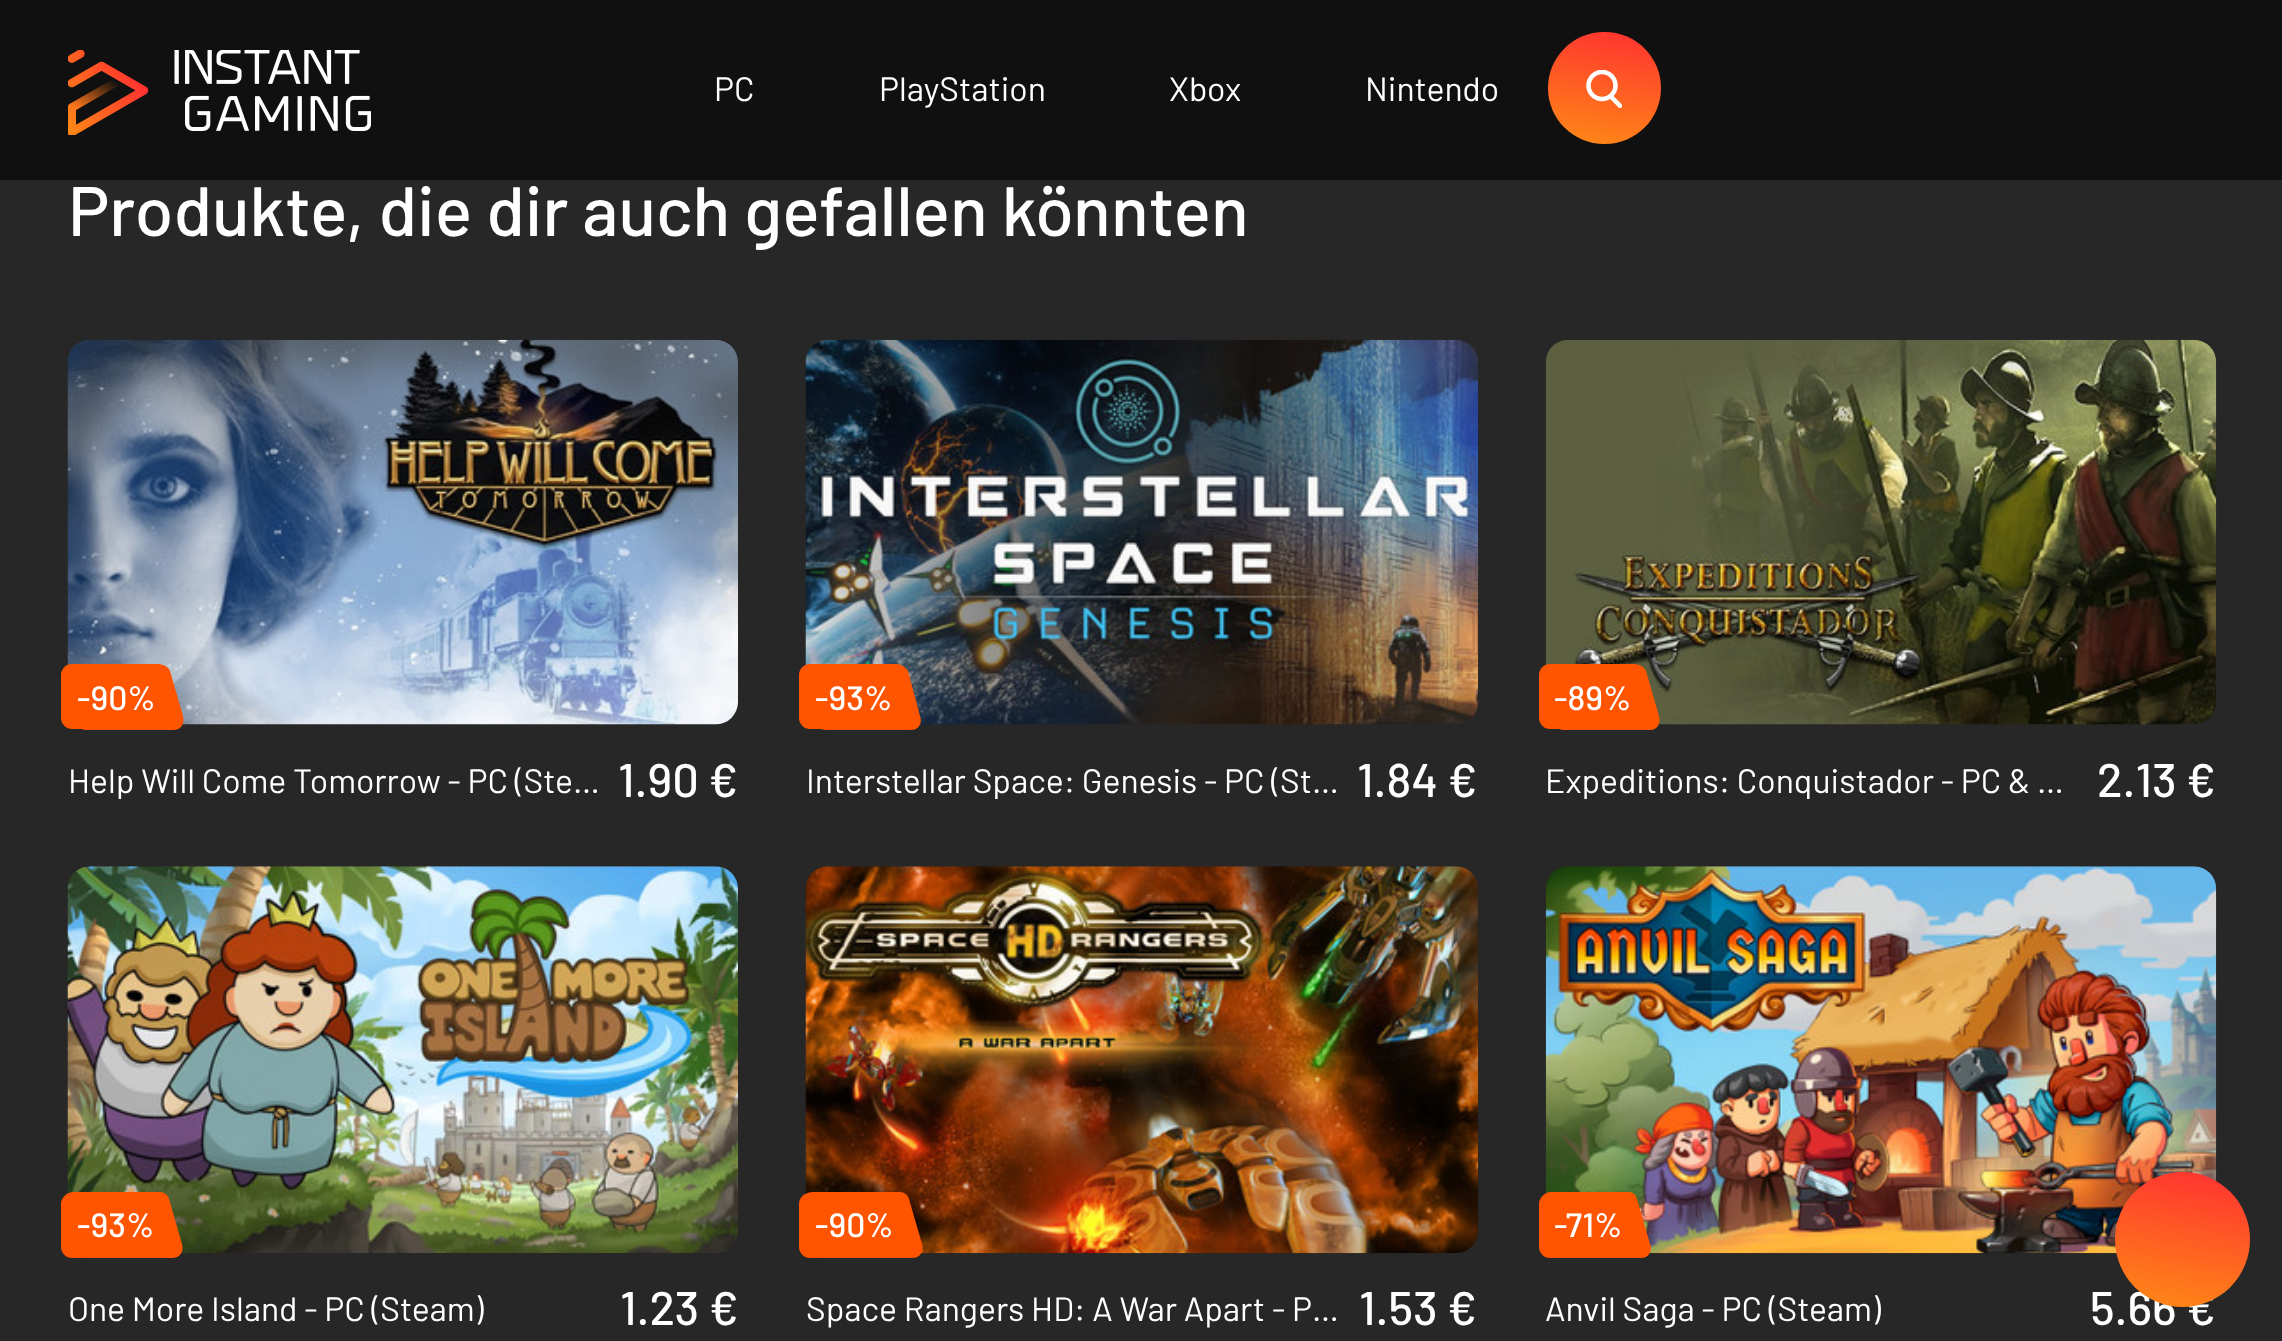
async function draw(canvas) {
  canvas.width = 2282;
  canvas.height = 1341;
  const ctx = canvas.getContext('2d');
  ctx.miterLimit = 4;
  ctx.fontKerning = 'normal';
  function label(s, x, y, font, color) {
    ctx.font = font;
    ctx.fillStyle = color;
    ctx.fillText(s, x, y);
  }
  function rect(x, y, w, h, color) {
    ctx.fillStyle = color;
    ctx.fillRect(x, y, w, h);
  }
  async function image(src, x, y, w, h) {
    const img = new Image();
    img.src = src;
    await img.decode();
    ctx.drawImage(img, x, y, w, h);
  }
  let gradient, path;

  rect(0, 0, 2282, 1341, '#272727');
  rect(0, 0, 2282, 180, '#101010');
  await image('assets/img1.png', 68, 50, 303, 85);
  label('PC', 714, 101, '33.75px Barlow', '#fff');
  label('PlayStation', 879, 101, '33.75px Barlow', '#fff');
  label('Xbox', 1169, 101, '33.75px Barlow', '#fff');
  label('Nintendo', 1365, 101, '33.75px Barlow', '#fff');
  gradient = ctx.createLinearGradient(1593, 152, 1616, 24);
  gradient.addColorStop(0, '#ff8a15');
  gradient.addColorStop(1, '#ff3131');
  ctx.fillStyle = gradient;
  ctx.beginPath();
  ctx.roundRect(1548, 32, 113, 112, 56);
  ctx.fill();
  await image('assets/img2.png', 1586, 70, 36, 38);
  label('Produkte, die dir auch gefallen könnten', 68, 236, '500 69.75px Barlow', '#fff');
  await image('assets/img3.png', 67, 339, 671, 386);
  ctx.fillStyle = '#ff5400';
  ctx.beginPath();
  ctx.roundRect(61, 664, 108, 65, [11, 11, 0, 11]);
  ctx.fill();
  path = new Path2D('M74 665H162C165 665 169 668 170 671L183 716C185 724 181 730 173 730H86C82 730 78 727 77 723L64 678C62 671 66 665 74 665Z');
  ctx.fill(path);
  label('-90%', 77, 710, '500 33.75px Barlow', '#fff');
  ctx.save();
  ctx.beginPath();
  ctx.rect(68, 758, 535, 41);
  ctx.clip();
  label('Help Will Come Tomorrow - PC (Ste…', 68, 793, '33.75px Barlow', '#fff');
  ctx.restore();
  label('1.90 €', 618, 797, '500 47px Barlow', '#fff');
  await image('assets/img4.png', 805, 339, 674, 386);
  ctx.fillStyle = '#ff5400';
  ctx.beginPath();
  ctx.roundRect(799, 664, 108, 65, [11, 11, 0, 11]);
  ctx.fill();
  path = new Path2D('M813 665H899C903 665 906 668 908 671L920 716C923 724 918 730 911 730H825C821 730 817 727 816 723L803 678C801 671 805 665 813 665Z');
  ctx.fill(path);
  label('-93%', 815, 710, '500 33.75px Barlow', '#fff');
  ctx.save();
  ctx.beginPath();
  ctx.rect(806, 758, 535, 41);
  ctx.clip();
  label('Interstellar Space: Genesis - PC (St…', 806, 793, '33.75px Barlow', '#fff');
  ctx.restore();
  label('1.84 €', 1357, 797, '500 47px Barlow', '#fff');
  await image('assets/img5.png', 1545, 339, 672, 386);
  ctx.fillStyle = '#ff5400';
  ctx.beginPath();
  ctx.roundRect(1539, 664, 106, 65, [11, 11, 0, 11]);
  ctx.fill();
  path = new Path2D('M1551 665H1638C1641 665 1645 668 1646 671L1659 716C1661 724 1657 730 1650 730H1563C1560 730 1556 727 1555 723L1542 678C1540 671 1544 665 1551 665Z');
  ctx.fill(path);
  label('-89%', 1554, 710, '500 33.75px Barlow', '#fff');
  ctx.save();
  ctx.beginPath();
  ctx.rect(1546, 758, 535, 41);
  ctx.clip();
  label('Expeditions: Conquistador - PC & …', 1545, 793, '33.75px Barlow', '#fff');
  ctx.restore();
  label('2.13 €', 2097, 797, '500 47px Barlow', '#fff');
  await image('assets/img6.png', 67, 866, 671, 387);
  ctx.fillStyle = '#ff5400';
  ctx.beginPath();
  ctx.roundRect(61, 1193, 106, 65, [11, 11, 0, 11]);
  ctx.fill();
  path = new Path2D('M74 1192H160C164 1192 168 1195 169 1199L182 1244C184 1252 180 1258 172 1258H86C82 1258 78 1255 77 1251L64 1206C62 1198 66 1192 74 1192Z');
  ctx.fill(path);
  label('-93%', 77, 1237, '500 33.75px Barlow', '#fff');
  label('One More Island - PC (Steam)', 68, 1321, '33.75px Barlow', '#fff');
  label('1.23 €', 620, 1325, '500 47px Barlow', '#fff');
  await image('assets/img7.png', 805, 866, 674, 388);
  ctx.fillStyle = '#ff5400';
  ctx.beginPath();
  ctx.roundRect(799, 1193, 108, 65, [11, 11, 0, 11]);
  ctx.fill();
  path = new Path2D('M813 1192H900C904 1192 908 1195 909 1199L922 1244C924 1252 920 1258 912 1258H825C821 1258 817 1255 816 1251L803 1206C801 1198 805 1192 813 1192Z');
  ctx.fill(path);
  label('-90%', 815, 1237, '500 33.75px Barlow', '#fff');
  label('Space Rangers HD: A War Apart - P…', 806, 1321, '33.75px Barlow', '#fff');
  label('1.53 €', 1359, 1325, '500 47px Barlow', '#fff');
  await image('assets/img8.png', 1545, 866, 672, 388);
  ctx.fillStyle = '#ff5400';
  ctx.beginPath();
  ctx.roundRect(1539, 1193, 97, 65, [11, 11, 0, 11]);
  ctx.fill();
  path = new Path2D('M1551 1192H1629C1633 1192 1636 1195 1637 1199L1650 1244C1653 1252 1648 1258 1641 1258H1563C1560 1258 1556 1255 1555 1251L1542 1206C1540 1198 1544 1192 1551 1192Z');
  ctx.fill(path);
  label('-71%', 1554, 1237, '500 33.75px Barlow', '#fff');
  label('Anvil Saga - PC (Steam)', 1545, 1321, '33.75px Barlow', '#fff');
  label('5.66 €', 2090, 1325, '500 47px Barlow', '#fff');
  gradient = ctx.createLinearGradient(2169, 1317, 2196, 1163);
  gradient.addColorStop(0, '#ff8a15');
  gradient.addColorStop(1, '#ff3131');
  ctx.fillStyle = gradient;
  ctx.beginPath();
  ctx.arc(2182.5, 1239.5, 67.5, 0, 2 * Math.PI);
  ctx.fill();
}

draw(document.querySelector('canvas'));
